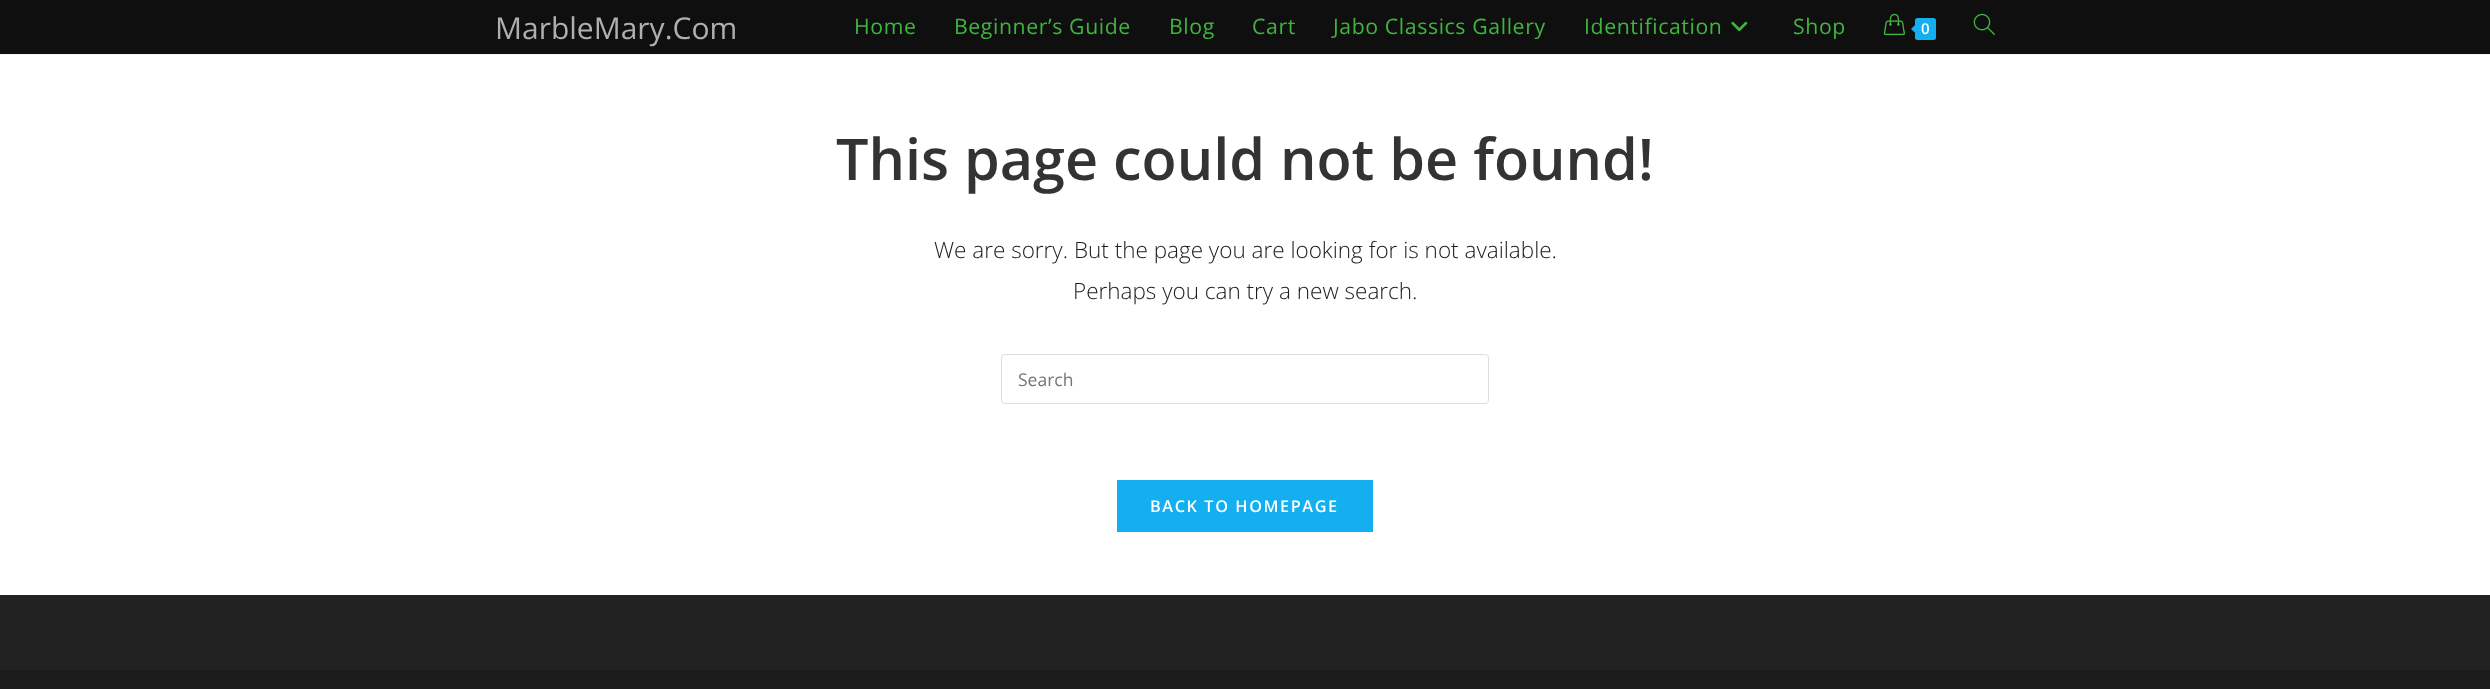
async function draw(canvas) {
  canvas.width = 2490;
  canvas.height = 689;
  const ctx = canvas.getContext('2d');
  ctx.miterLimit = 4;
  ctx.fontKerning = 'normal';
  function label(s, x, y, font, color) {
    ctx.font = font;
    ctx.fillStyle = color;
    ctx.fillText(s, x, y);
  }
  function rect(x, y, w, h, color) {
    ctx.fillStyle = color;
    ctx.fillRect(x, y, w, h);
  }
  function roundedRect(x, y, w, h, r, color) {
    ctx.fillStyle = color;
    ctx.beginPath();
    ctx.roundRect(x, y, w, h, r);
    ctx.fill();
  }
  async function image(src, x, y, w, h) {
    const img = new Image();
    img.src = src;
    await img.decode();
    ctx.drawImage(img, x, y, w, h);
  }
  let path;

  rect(0, 0, 2490, 689, '#fff');
  rect(0, 0, 2490, 54, '#0f0f0f');
  rect(0, 54, 2490, 1, '#f1f1f1');
  label('MarbleMary.Com', 495, 39, '30px Open Sans', '#afafaf');
  ctx.letterSpacing = '0.6px';
  label('Home', 854, 34, '21.25px Open Sans', '#3fb53f');
  label('Beginner’s Guide', 954, 34, '21.25px Open Sans', '#3fb53f');
  label('Blog', 1169, 34, '21.25px Open Sans', '#3fb53f');
  label('Cart', 1252, 34, '21.25px Open Sans', '#3fb53f');
  label('Jabo Classics Gallery', 1333, 34, '21.25px Open Sans', '#3fb53f');
  label('Identification', 1584, 34, '21.25px Open Sans', '#3fb53f');
  await image('assets/img1.png', 1731, 21, 17, 11);
  label('Shop', 1793, 34, '21.25px Open Sans', '#3fb53f');
  await image('assets/img2.png', 1883, 13, 22, 23);
  roundedRect(1915, 18, 21, 22, 2.5, '#13aff0');
  path = new Path2D('M1917.5 22.5V35L1911 29Z');
  ctx.fill(path);
  ctx.letterSpacing = '0px';
  label('0', 1921, 34, '600 15px Open Sans', '#fff');
  await image('assets/img3.png', 1973, 13, 22, 22);
  label('This page could not be found!', 836, 180, '600 57.5px Open Sans', '#333');
  label('We are sorry. But the page you are looking for is not available.', 934, 258, '300 22.5px Open Sans', '#1c1c1c');
  label('Perhaps you can try a new search.', 1073, 299, '300 22.5px Open Sans', '#1c1c1c');
  ctx.beginPath();
  ctx.roundRect(1001.5, 354.5, 487, 49, 3.5);
  ctx.strokeStyle = '#ddd';
  ctx.stroke();
  label('Search', 1018, 386, '17.5px Open Sans', '#757575');
  rect(1117, 480, 256, 52, '#13aff0');
  ctx.letterSpacing = '1.6px';
  label('BACK TO HOMEPAGE', 1150, 512, '600 16.25px Open Sans', '#fff');
  rect(0, 595, 2490, 75, '#222');
  rect(0, 670, 2490, 19, '#1b1b1b');
}

draw(document.querySelector('canvas'));
